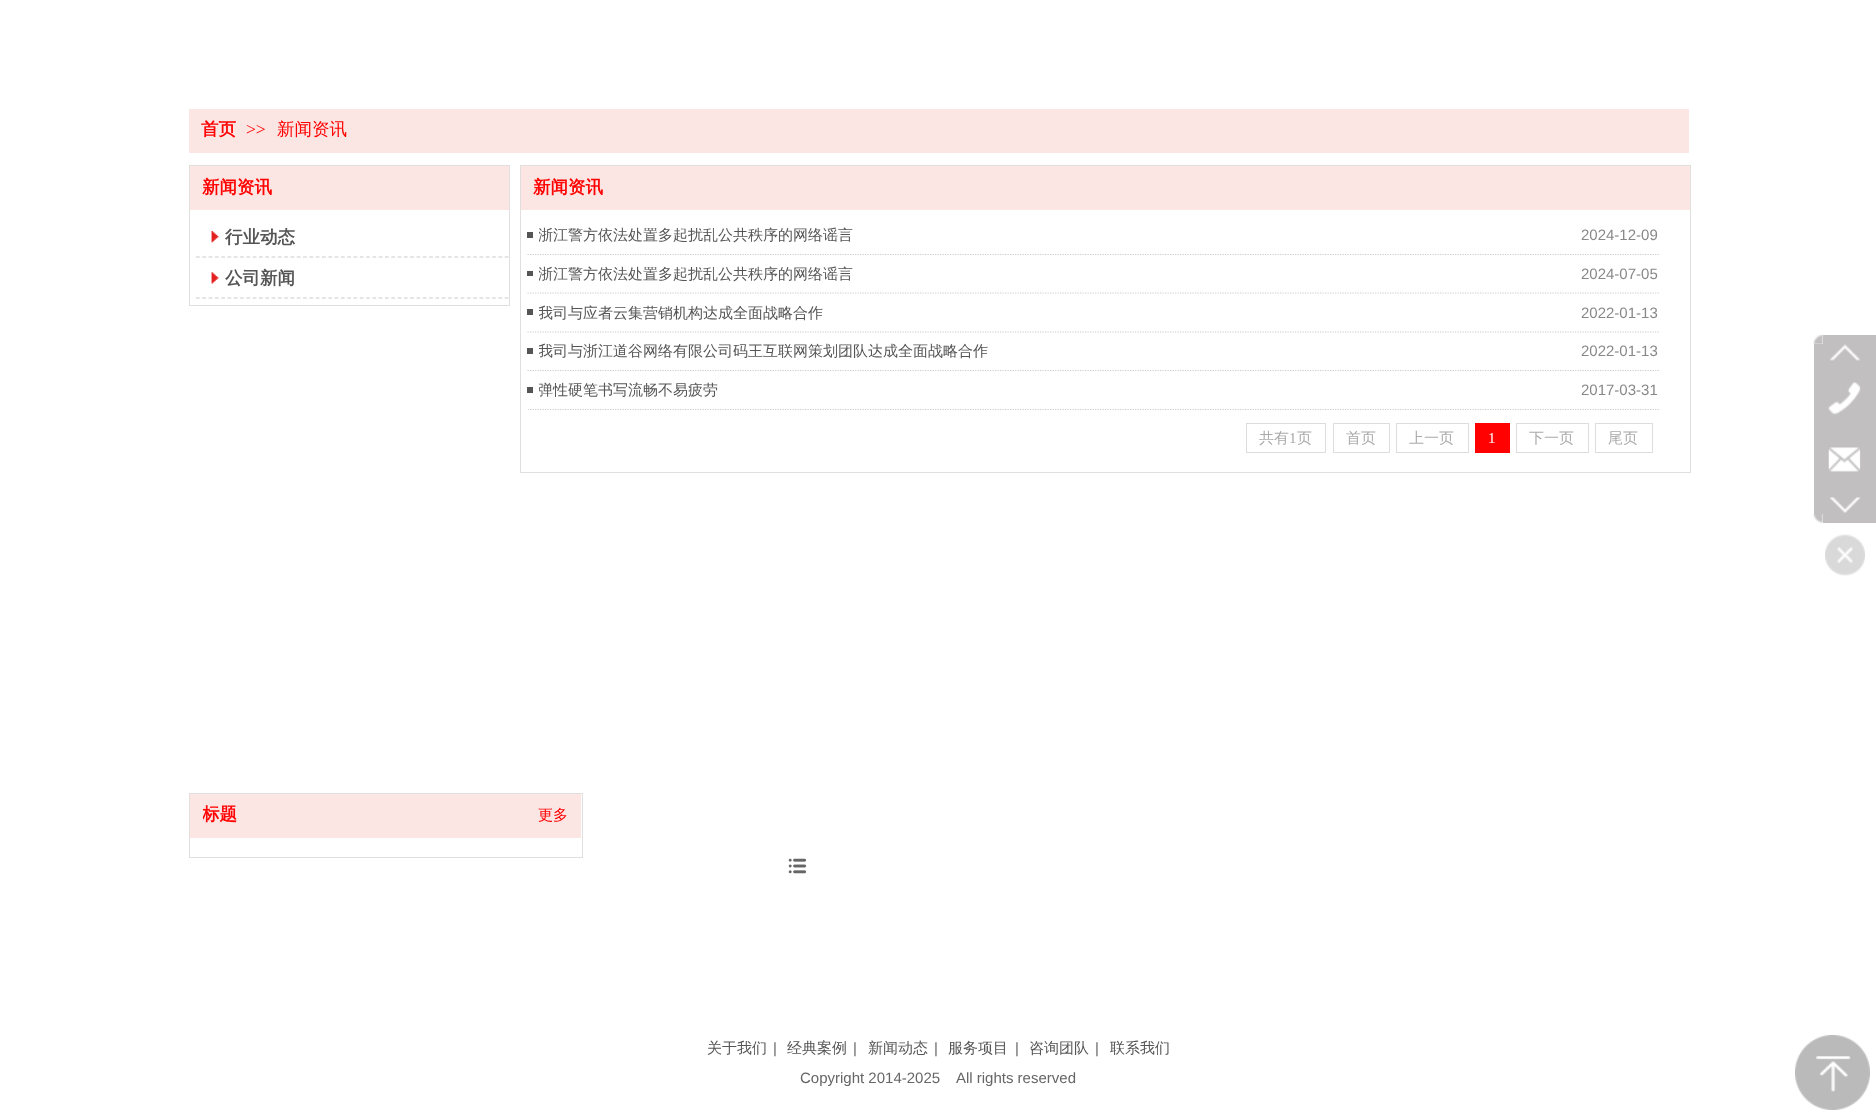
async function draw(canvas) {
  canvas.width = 1876;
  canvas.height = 1116;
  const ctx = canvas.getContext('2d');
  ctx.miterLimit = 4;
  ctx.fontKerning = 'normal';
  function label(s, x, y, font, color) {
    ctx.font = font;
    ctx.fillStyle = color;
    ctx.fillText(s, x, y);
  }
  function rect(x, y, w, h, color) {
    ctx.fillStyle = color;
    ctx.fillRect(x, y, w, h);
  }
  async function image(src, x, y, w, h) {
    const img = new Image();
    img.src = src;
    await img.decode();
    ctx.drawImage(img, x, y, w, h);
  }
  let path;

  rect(0, 0, 1876, 1116, '#fff');
  rect(189, 109, 1500, 44, '#fbe6e3');
  label('首页', 201, 135, 'bold 17.5px WenQuanYi Zen Hei', '#ff0101');
  label('>>', 246, 135, '17.5px Liberation Serif', '#ff0101');
  label('新闻资讯', 277, 135, '500 17.5px WenQuanYi Zen Hei', '#ff0101');
  ctx.strokeStyle = '#e0dfdd';
  ctx.strokeRect(189.5, 165.5, 320, 140);
  rect(190, 166, 319, 44, '#fbe6e3');
  label('新闻资讯', 202, 193, 'bold 17.5px WenQuanYi Zen Hei', '#ff0101');
  ctx.save();
  ctx.beginPath();
  ctx.rect(196, 216, 313, 42);
  ctx.clip();
  path = new Path2D('M196 257H515');
  ctx.strokeStyle = '#ccc';
  ctx.lineWidth = 1.2;
  ctx.setLineDash([3.75, 2.55]);
  ctx.stroke(path);
  ctx.restore();
  await image('assets/img1.png', 211, 231, 8, 12);
  label('行业动态', 225, 243, 'bold 17.5px WenQuanYi Zen Hei', '#555');
  ctx.save();
  ctx.beginPath();
  ctx.rect(196, 258, 313, 41);
  ctx.clip();
  path = new Path2D('M196 298H515');
  ctx.strokeStyle = '#ccc';
  ctx.lineWidth = 1.2;
  ctx.setLineDash([3.75, 2.55]);
  ctx.stroke(path);
  ctx.restore();
  await image('assets/img2.png', 211, 272, 8, 12);
  label('公司新闻', 225, 284, 'bold 17.5px WenQuanYi Zen Hei', '#555');
  ctx.strokeRect(520.5, 165.5, 1170, 307);
  rect(521, 166, 1169, 44, '#fbe6e3');
  label('新闻资讯', 533, 193, 'bold 17.5px WenQuanYi Zen Hei', '#ff0101');
  path = new Path2D('M527.5 254.5H1659');
  ctx.strokeStyle = '#ccc';
  ctx.lineWidth = 1.2;
  ctx.setLineDash([1.25, 1.25]);
  ctx.stroke(path);
  rect(527, 232, 6, 6, '#555');
  ctx.save();
  ctx.beginPath();
  ctx.rect(539, 216, 1032, 38);
  ctx.clip();
  label('浙江警方依法处置多起扰乱公共秩序的网络谣言', 538, 240, '500 15px WenQuanYi Zen Hei', '#555');
  ctx.restore();
  label('2024-12-09', 1581, 240, '15px Liberation Sans', '#888');
  path = new Path2D('M527.5 293H1659');
  ctx.stroke(path);
  rect(527, 271, 6, 5, '#555');
  ctx.save();
  ctx.beginPath();
  ctx.rect(539, 255, 1032, 38);
  ctx.clip();
  label('浙江警方依法处置多起扰乱公共秩序的网络谣言', 538, 279, '500 15px WenQuanYi Zen Hei', '#555');
  ctx.restore();
  label('2024-07-05', 1581, 279, '15px Liberation Sans', '#888');
  path = new Path2D('M527.5 332H1659');
  ctx.stroke(path);
  rect(527, 309, 6, 6, '#555');
  ctx.save();
  ctx.beginPath();
  ctx.rect(539, 294, 1032, 37);
  ctx.clip();
  label('我司与应者云集营销机构达成全面战略合作', 538, 318, '500 15px WenQuanYi Zen Hei', '#555');
  ctx.restore();
  label('2022-01-13', 1581, 318, '15px Liberation Sans', '#888');
  path = new Path2D('M527.5 370.5H1659');
  ctx.stroke(path);
  rect(527, 348, 6, 6, '#555');
  ctx.save();
  ctx.beginPath();
  ctx.rect(539, 333, 1032, 37);
  ctx.clip();
  label('我司与浙江道谷网络有限公司码王互联网策划团队达成全面战略合作', 538, 356, '500 15px WenQuanYi Zen Hei', '#555');
  ctx.restore();
  label('2022-01-13', 1581, 356, '15px Liberation Sans', '#888');
  ctx.save();
  ctx.beginPath();
  ctx.rect(528, 216, 1131, 194);
  ctx.clip();
  path = new Path2D('M527.5 409.5H1659');
  ctx.stroke(path);
  ctx.restore();
  rect(527, 387, 6, 6, '#555');
  ctx.save();
  ctx.beginPath();
  ctx.rect(539, 371, 1032, 38);
  ctx.clip();
  label('弹性硬笔书写流畅不易疲劳', 538, 395, '500 15px WenQuanYi Zen Hei', '#555');
  ctx.restore();
  label('2017-03-31', 1581, 395, '15px Liberation Sans', '#888');
  ctx.strokeStyle = '#ddd';
  ctx.lineWidth = 1;
  ctx.setLineDash([]);
  ctx.strokeRect(1246.5, 423.5, 79, 29);
  label('共有', 1259, 443, '500 15px WenQuanYi Zen Hei', '#aaa');
  label('1', 1289, 443, '15px Liberation Serif', '#aaa');
  label('页', 1297, 443, '500 15px WenQuanYi Zen Hei', '#aaa');
  ctx.strokeRect(1333.5, 423.5, 56, 29);
  label('首页', 1346, 443, '500 15px WenQuanYi Zen Hei', '#aaa');
  ctx.strokeRect(1396.5, 423.5, 72, 29);
  label('上一页', 1409, 443, '500 15px WenQuanYi Zen Hei', '#aaa');
  rect(1475, 423, 35, 30, '#ff0101');
  label('1', 1488, 443, '15px Liberation Serif', '#fff');
  ctx.strokeRect(1516.5, 423.5, 72, 29);
  label('下一页', 1529, 443, '500 15px WenQuanYi Zen Hei', '#aaa');
  ctx.strokeRect(1595.5, 423.5, 57, 29);
  label('尾页', 1608, 443, '500 15px WenQuanYi Zen Hei', '#aaa');
  await image('assets/img3.png', 1813, 334, 10, 10);
  rect(1823, 335, 53, 9, '#c1bfc0');
  rect(1814, 344, 62, 170, '#c1bfc0');
  await image('assets/img4.png', 1830, 344, 30, 17);
  await image('assets/img5.png', 1828, 382, 33, 33);
  await image('assets/img6.png', 1828, 447, 33, 25);
  await image('assets/img7.png', 1830, 497, 31, 16);
  await image('assets/img8.png', 1813, 514, 10, 9);
  rect(1823, 514, 53, 9, '#c1bfc0');
  await image('assets/img9.png', 1825, 534, 40, 42);
  ctx.strokeStyle = '#e0dfdd';
  ctx.strokeRect(189.5, 793.5, 393, 64);
  rect(190, 794, 391, 44, '#fbe6e3');
  ctx.save();
  ctx.beginPath();
  ctx.rect(203, 804, 35, 22);
  ctx.clip();
  label('标题', 202, 820, 'bold 17.5px WenQuanYi Zen Hei', '#ff0101');
  ctx.restore();
  label('更多', 538, 820, '500 15px WenQuanYi Zen Hei', '#ff0101');
  await image('assets/img10.png', 788, 858, 19, 16);
  label('关于我们', 707, 1053, '500 15px WenQuanYi Zen Hei', '#555');
  label('|', 773, 1053, '15px Liberation Sans', '#666');
  label('经典案例', 787, 1053, '500 15px WenQuanYi Zen Hei', '#555');
  label('|', 853, 1053, '15px Liberation Sans', '#666');
  label('新闻动态', 868, 1053, '500 15px WenQuanYi Zen Hei', '#555');
  label('|', 934, 1053, '15px Liberation Sans', '#666');
  label('服务项目', 948, 1053, '500 15px WenQuanYi Zen Hei', '#555');
  label('|', 1015, 1053, '15px Liberation Sans', '#666');
  label('咨询团队', 1029, 1053, '500 15px WenQuanYi Zen Hei', '#555');
  label('|', 1095, 1053, '15px Liberation Sans', '#666');
  label('联系我们', 1110, 1053, '500 15px WenQuanYi Zen Hei', '#555');
  label('Copyright 2014-2025    All rights reserved', 800, 1083, '15px Liberation Sans', '#666');
  await image('assets/img11.png', 1795, 1035, 75, 75);
}

draw(document.querySelector('canvas'));
